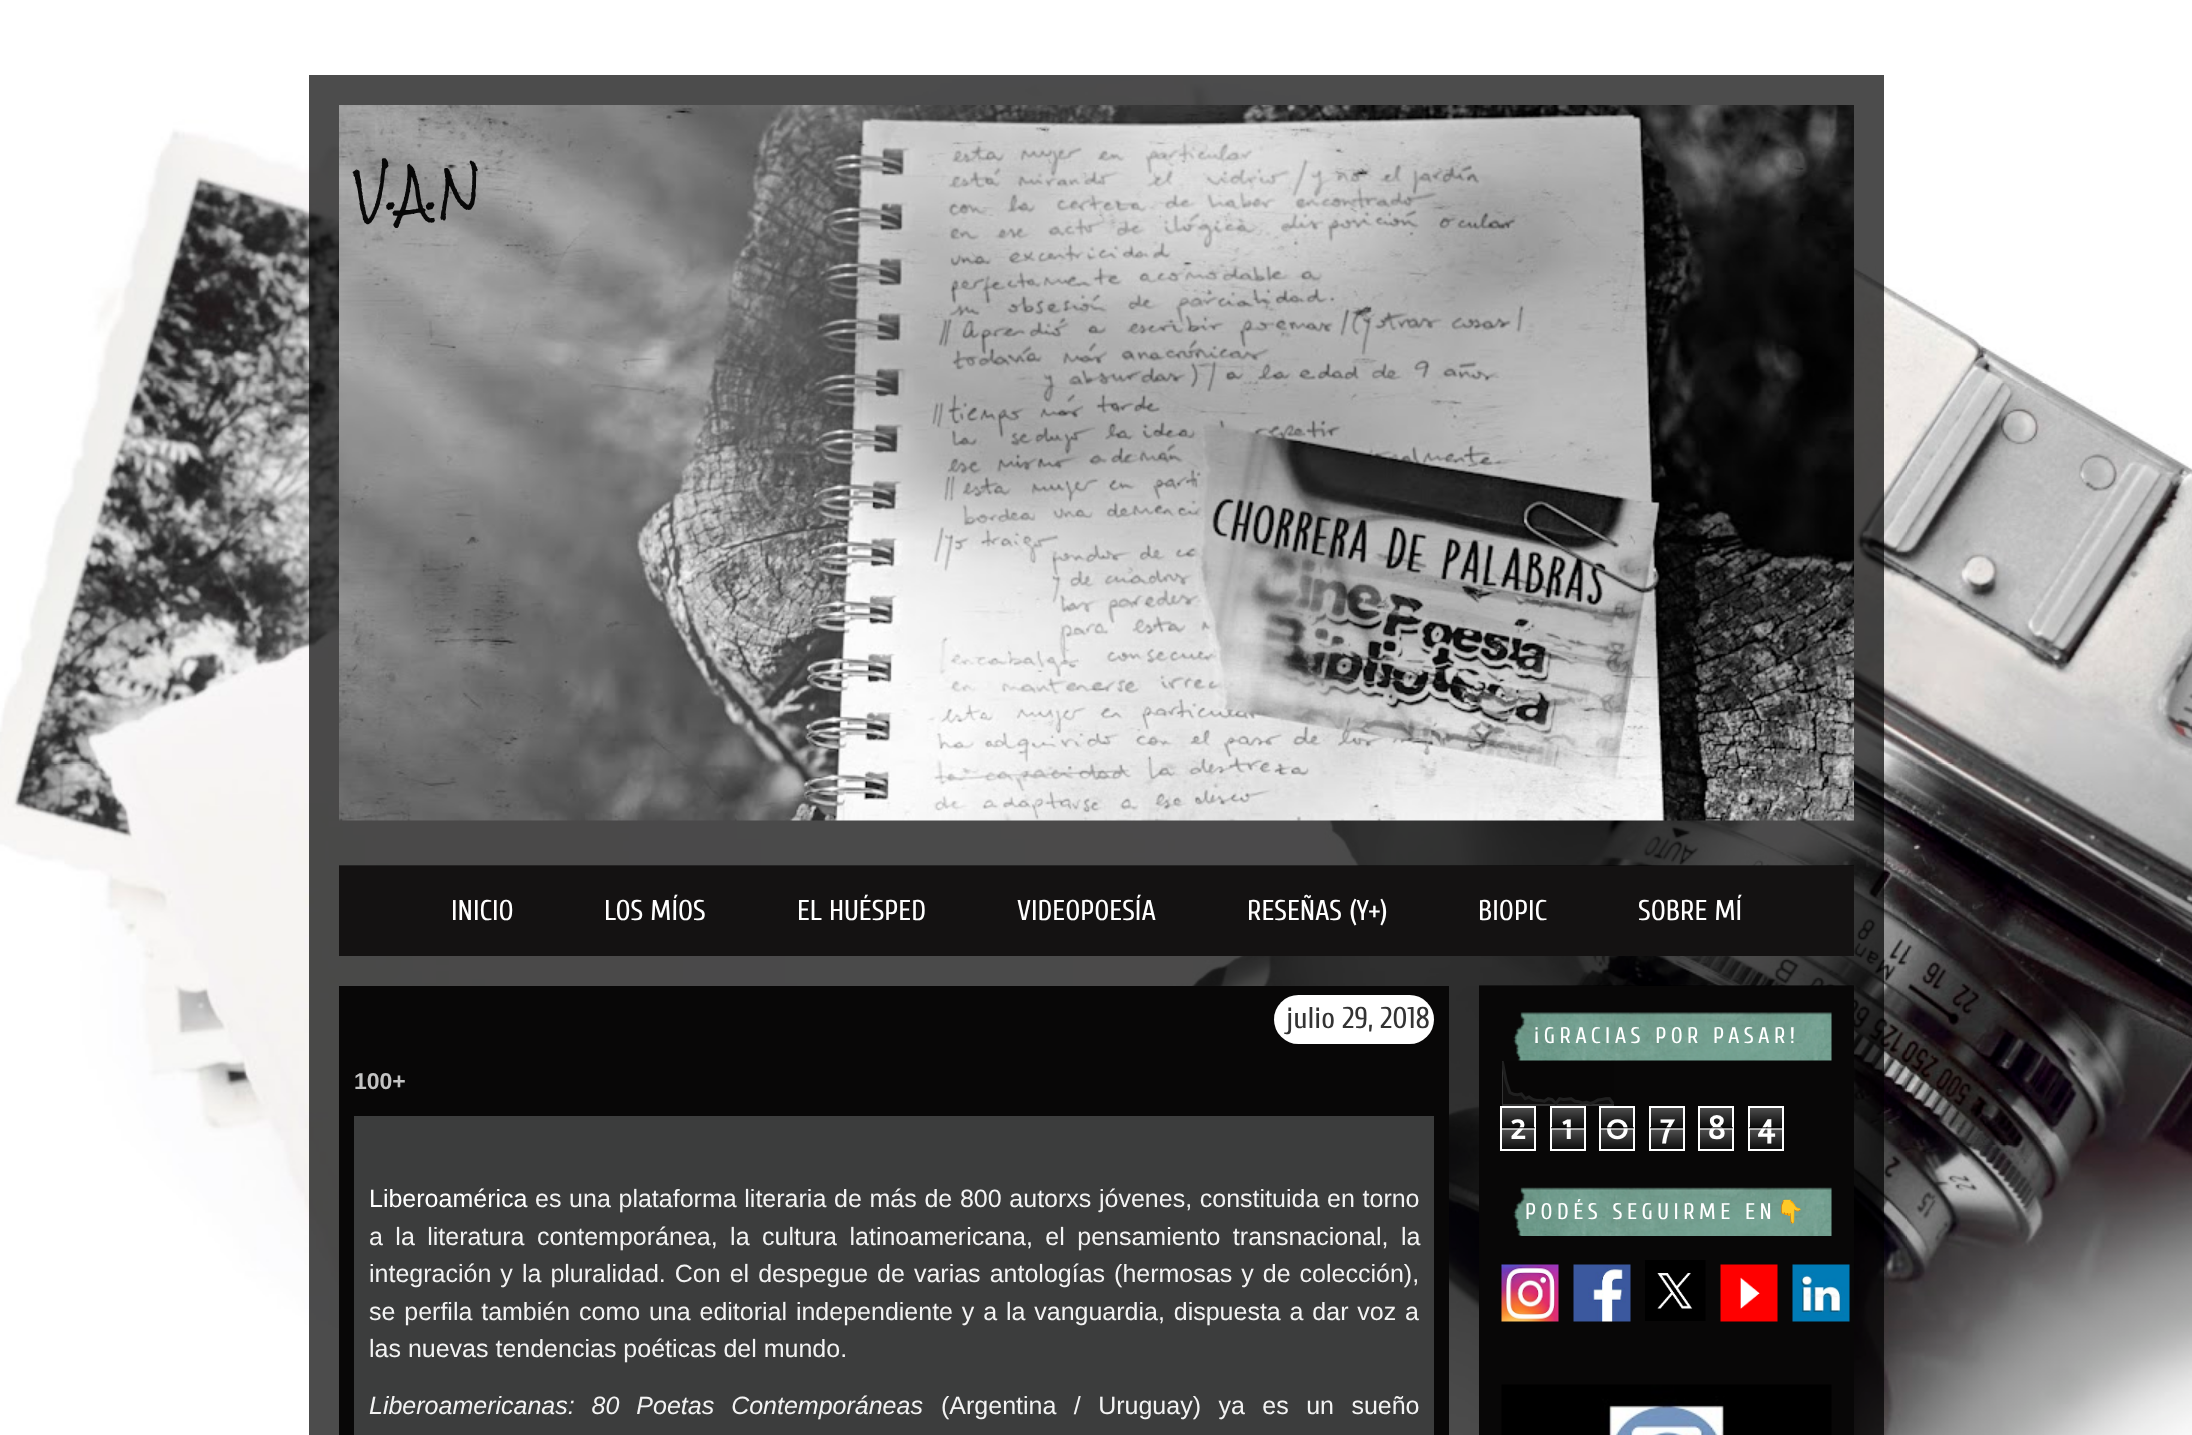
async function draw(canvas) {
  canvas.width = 2192;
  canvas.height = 1435;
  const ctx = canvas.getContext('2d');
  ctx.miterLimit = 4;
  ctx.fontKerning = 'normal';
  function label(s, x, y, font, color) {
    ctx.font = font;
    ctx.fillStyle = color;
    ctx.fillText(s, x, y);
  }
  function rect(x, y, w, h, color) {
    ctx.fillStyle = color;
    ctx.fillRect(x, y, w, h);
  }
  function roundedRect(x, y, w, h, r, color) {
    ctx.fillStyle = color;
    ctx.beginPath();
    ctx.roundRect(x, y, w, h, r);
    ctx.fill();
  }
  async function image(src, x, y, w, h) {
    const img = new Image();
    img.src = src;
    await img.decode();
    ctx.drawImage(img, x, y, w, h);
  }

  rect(0, 0, 2192, 1435, '#fff');
  await image('assets/img1.png', 0, 76, 2192, 1359);
  rect(309, 75, 1575, 1360, '#000000b3');
  await image('assets/img2.png', 339, 105, 1515, 716);
  label('V.A.N', 354, 210, '45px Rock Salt', '#080808');
  rect(339, 866, 1515, 90, '#282525');
  rect(339, 865, 1515, 91, '#00000080');
  label('INICIO', 451, 920, '28.5px Cuprum', '#fff');
  label('LOS MÍOS', 604, 920, '28.5px Cuprum', '#fff');
  label('EL HUÉSPED', 797, 920, '28.5px Cuprum', '#fff');
  label('VIDEOPOESÍA', 1017, 920, '28.5px Cuprum', '#fff');
  label('RESEÑAS (Y+)', 1247, 920, '28.5px Cuprum', '#fff');
  label('BIOPIC', 1478, 920, '28.5px Cuprum', '#fff');
  label('SOBRE MÍ', 1638, 920, '28.5px Cuprum', '#fff');
  rect(1479, 986, 375, 449, '#110f0f');
  rect(1479, 985, 375, 450, '#00000080');
  rect(339, 986, 1110, 449, '#080707');
  roundedRect(1274, 995, 160, 49, 24.5, '#fff');
  label('julio 29, 2018', 1286, 1028, '30px Cuprum', '#333');
  label('100+', 354, 1089, 'bold 23px Liberation Sans', '#c3c3c3');
  rect(354, 1116, 1080, 319, '#3c3d3d');
  label('Liberoamérica', 369, 1207, '25px Liberation Sans', '#fff');
  ctx.wordSpacing = '0.75px';
  label('es una plataforma literaria de más de 800 autorxs jóvenes, constituida en torno', 535, 1207, '25px Liberation Sans', '#f3f3f3');
  ctx.wordSpacing = '5.5px';
  label('a la literatura contemporánea, la cultura latinoamericana, el pensamiento transnacional, la', 369, 1245, '25px Liberation Sans', '#f3f3f3');
  ctx.wordSpacing = '2.1px';
  label('integración y la pluralidad. Con el despegue de varias antologías (hermosas y de colección),', 369, 1282, '25px Liberation Sans', '#f3f3f3');
  ctx.wordSpacing = '1.9px';
  label('se perfila también como una editorial independiente y a la vanguardia, dispuesta a dar voz a', 369, 1320, '25px Liberation Sans', '#f3f3f3');
  ctx.wordSpacing = '0px';
  label('las nuevas tendencias poéticas del mundo.', 369, 1357, '25px Liberation Sans', '#f3f3f3');
  ctx.wordSpacing = '10px';
  label('Liberoamericanas: 80 Poetas Contemporáneas', 369, 1414, 'italic 25px Liberation Sans', '#f3f3f3');
  ctx.wordSpacing = '10.5px';
  label('(Argentina / Uruguay) ya es un sueño', 941, 1414, '25px Liberation Sans', '#f3f3f3');
  await image('assets/img3.png', 1513, 1012, 319, 49);
  ctx.letterSpacing = '4.5px';
  ctx.wordSpacing = '0px';
  label('¡GRACIAS POR PASAR!', 1534, 1043, '22.5px Cuprum', '#fff');
  await image('assets/img4.png', 1502, 1061, 112, 45);
  await image('assets/img5.png', 1502, 1108, 32, 41);
  ctx.strokeStyle = '#fff';
  ctx.lineWidth = 2;
  ctx.strokeRect(1501, 1107, 34, 43);
  ctx.letterSpacing = '0px';
  label('2', 1510, 1139, 'bold 36px Molengo', '#fff');
  rect(1502, 1127, 33, 2, '#000000a6');
  rect(1502, 1128, 33, 2, '#ffffffa6');
  await image('assets/img6.png', 1552, 1108, 32, 41);
  ctx.strokeRect(1551, 1107, 34, 43);
  label('1', 1562, 1139, 'bold 36px Molengo', '#fff');
  rect(1551, 1127, 33, 2, '#000000a6');
  rect(1551, 1128, 33, 2, '#ffffffa6');
  await image('assets/img5.png', 1601, 1108, 32, 41);
  ctx.strokeRect(1600, 1107, 34, 43);
  label('0', 1606, 1139, 'bold 36px Molengo', '#fff');
  rect(1601, 1127, 33, 2, '#000000a6');
  rect(1601, 1128, 33, 2, '#ffffffa6');
  await image('assets/img6.png', 1651, 1108, 32, 41);
  ctx.strokeRect(1650, 1107, 34, 43);
  label('7', 1660, 1139, 'bold 36px Molengo', '#fff');
  rect(1650, 1127, 33, 2, '#000000a6');
  rect(1650, 1128, 33, 2, '#ffffffa6');
  await image('assets/img5.png', 1700, 1108, 32, 41);
  ctx.strokeRect(1699, 1107, 34, 43);
  label('8', 1708, 1139, 'bold 36px Molengo', '#fff');
  rect(1700, 1127, 33, 2, '#000000a6');
  rect(1700, 1128, 33, 2, '#ffffffa6');
  await image('assets/img6.png', 1750, 1108, 32, 41);
  ctx.strokeRect(1749, 1107, 34, 43);
  label('4', 1757, 1139, 'bold 36px Molengo', '#fff');
  rect(1749, 1127, 33, 2, '#000000a6');
  rect(1749, 1128, 33, 2, '#ffffffa6');
  await image('assets/img7.png', 1513, 1187, 319, 49);
  ctx.letterSpacing = '4.5px';
  label('PODÉS SEGUIRME EN', 1525, 1219, '22.5px Cuprum', '#fff');
  label('👇', 1776, 1219, '22.5px Noto Color Emoji', '#fff');
  await image('assets/img8.png', 1501, 1264, 58, 58);
  await image('assets/img9.png', 1573, 1264, 58, 58);
  await image('assets/img10.png', 1645, 1260, 61, 61);
  await image('assets/img11.png', 1720, 1264, 58, 58);
  await image('assets/img12.png', 1792, 1264, 58, 58);
  await image('assets/img13.png', 1501, 1384, 331, 51);
}

draw(document.querySelector('canvas'));
